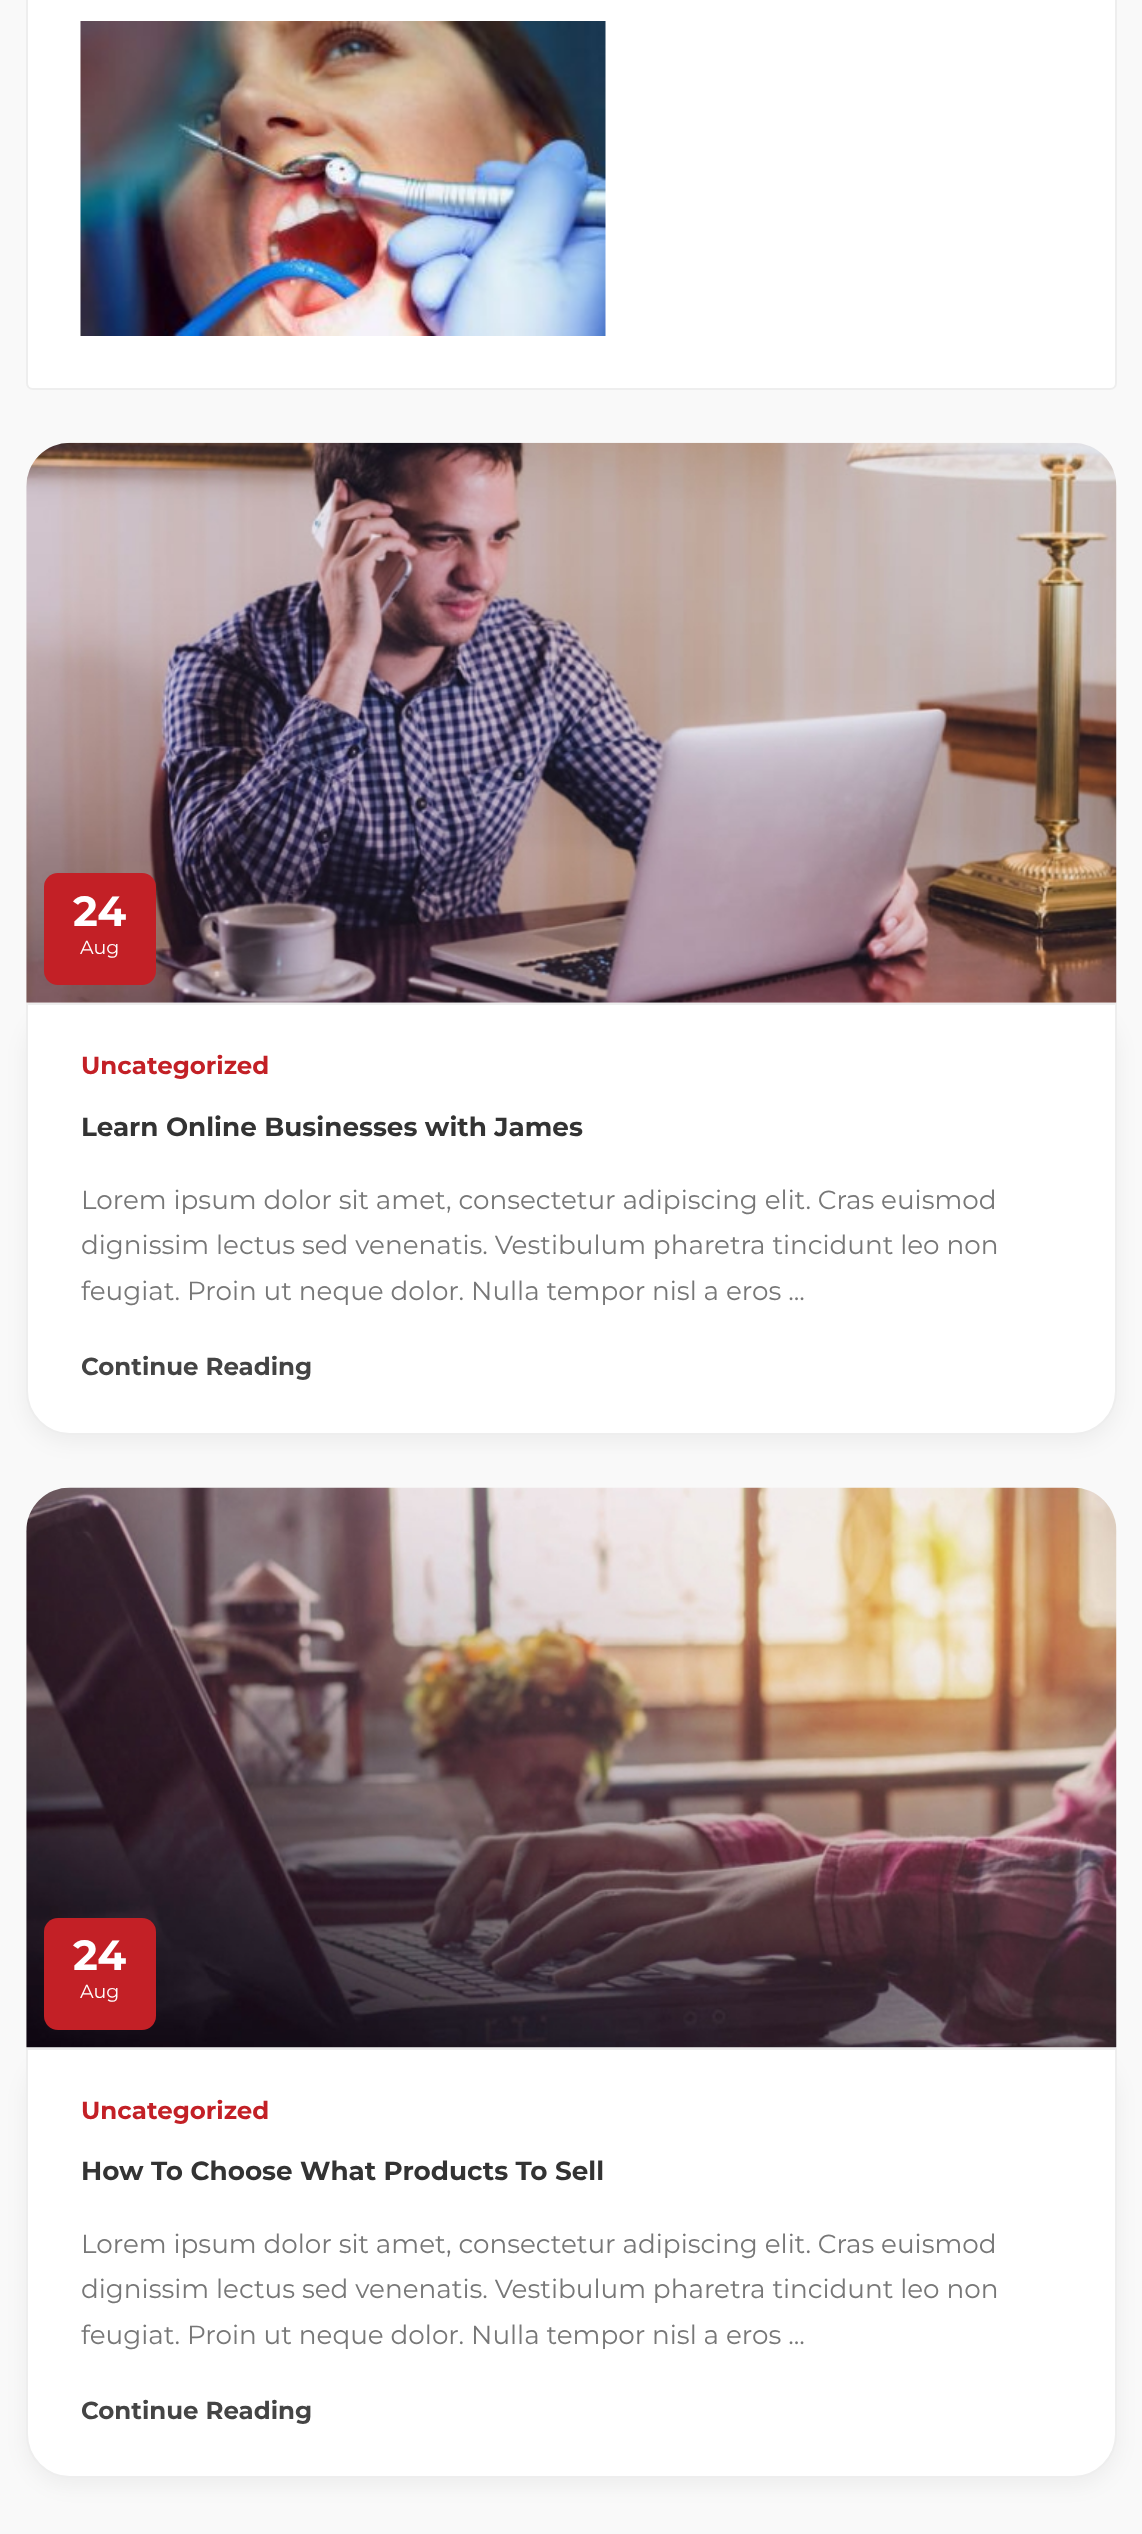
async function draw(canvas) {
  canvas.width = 1142;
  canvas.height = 2534;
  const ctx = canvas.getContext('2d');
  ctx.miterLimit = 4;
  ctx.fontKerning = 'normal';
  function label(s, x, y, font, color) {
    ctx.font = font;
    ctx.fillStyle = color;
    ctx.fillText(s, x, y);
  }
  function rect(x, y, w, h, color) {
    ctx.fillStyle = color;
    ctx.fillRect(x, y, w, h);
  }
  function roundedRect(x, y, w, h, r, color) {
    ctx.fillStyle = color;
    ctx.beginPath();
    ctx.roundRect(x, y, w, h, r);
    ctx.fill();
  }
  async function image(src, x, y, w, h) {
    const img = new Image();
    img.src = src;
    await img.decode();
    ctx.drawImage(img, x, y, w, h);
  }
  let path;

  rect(0, 0, 1142, 2534, '#f9f9f9');
  ctx.fillStyle = '#fff';
  path = new Path2D('M27-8H1116V383C1116 386.5 1113.5 389 1110 389H33C29.5 389 27 386.5 27 383Z');
  ctx.fill(path);
  ctx.strokeStyle = '#eee';
  ctx.lineWidth = 2;
  ctx.stroke(path);
  await image('assets/img1.png', 80, 21, 526, 315);
  ctx.fillStyle = '#0001010d';
  ctx.filter = 'blur(10.5px)';
  ctx.beginPath();
  ctx.roundRect(26, 1010, 1091, 432, 44);
  ctx.fill();
  ctx.filter = 'none';
  await image('assets/img2.png', 26, 442, 1091, 561);
  roundedRect(44, 873, 112, 112, 14, '#c32026');
  label('24', 73, 926, 'bold 42px Montserrat', '#fff');
  label('Aug', 80, 954, '19px Montserrat', '#fff');
  ctx.beginPath();
  ctx.roundRect(27, 1004, 1089, 430, [0, 0, 43, 43]);
  ctx.fill();
  ctx.stroke();
  label('Uncategorized', 81, 1074, 'bold 24.5px Montserrat', '#c32026');
  label('Learn Online Businesses with James', 81, 1136, 'bold 26.25px Montserrat', '#333');
  label('Lorem ipsum dolor sit amet, consectetur adipiscing elit. Cras euismod', 81, 1209, '26.25px Montserrat', '#777');
  label('dignissim lectus sed venenatis. Vestibulum pharetra tincidunt leo non', 81, 1254, '26.25px Montserrat', '#777');
  label('feugiat. Proin ut neque dolor. Nulla tempor nisl a eros ...', 81, 1300, '26.25px Montserrat', '#777');
  label('Continue Reading', 81, 1375, 'bold 24.5px Montserrat', '#444');
  ctx.fillStyle = '#0001010d';
  ctx.filter = 'blur(10.5px)';
  ctx.beginPath();
  ctx.roundRect(26, 2055, 1091, 430, 44);
  ctx.fill();
  ctx.filter = 'none';
  await image('assets/img3.png', 26, 1487, 1091, 561);
  roundedRect(44, 1918, 112, 112, 14, '#c32026');
  label('24', 73, 1970, 'bold 42px Montserrat', '#fff');
  label('Aug', 80, 1998, '19px Montserrat', '#fff');
  ctx.beginPath();
  ctx.roundRect(27, 2049, 1089, 428, [0, 0, 43, 43]);
  ctx.fill();
  ctx.stroke();
  label('Uncategorized', 81, 2119, 'bold 24.5px Montserrat', '#c32026');
  label('How To Choose What Products To Sell', 81, 2180, 'bold 26.25px Montserrat', '#333');
  label('Lorem ipsum dolor sit amet, consectetur adipiscing elit. Cras euismod', 81, 2253, '26.25px Montserrat', '#777');
  label('dignissim lectus sed venenatis. Vestibulum pharetra tincidunt leo non', 81, 2298, '26.25px Montserrat', '#777');
  label('feugiat. Proin ut neque dolor. Nulla tempor nisl a eros ...', 81, 2344, '26.25px Montserrat', '#777');
  label('Continue Reading', 81, 2419, 'bold 24.5px Montserrat', '#444');
}

draw(document.querySelector('canvas'));
